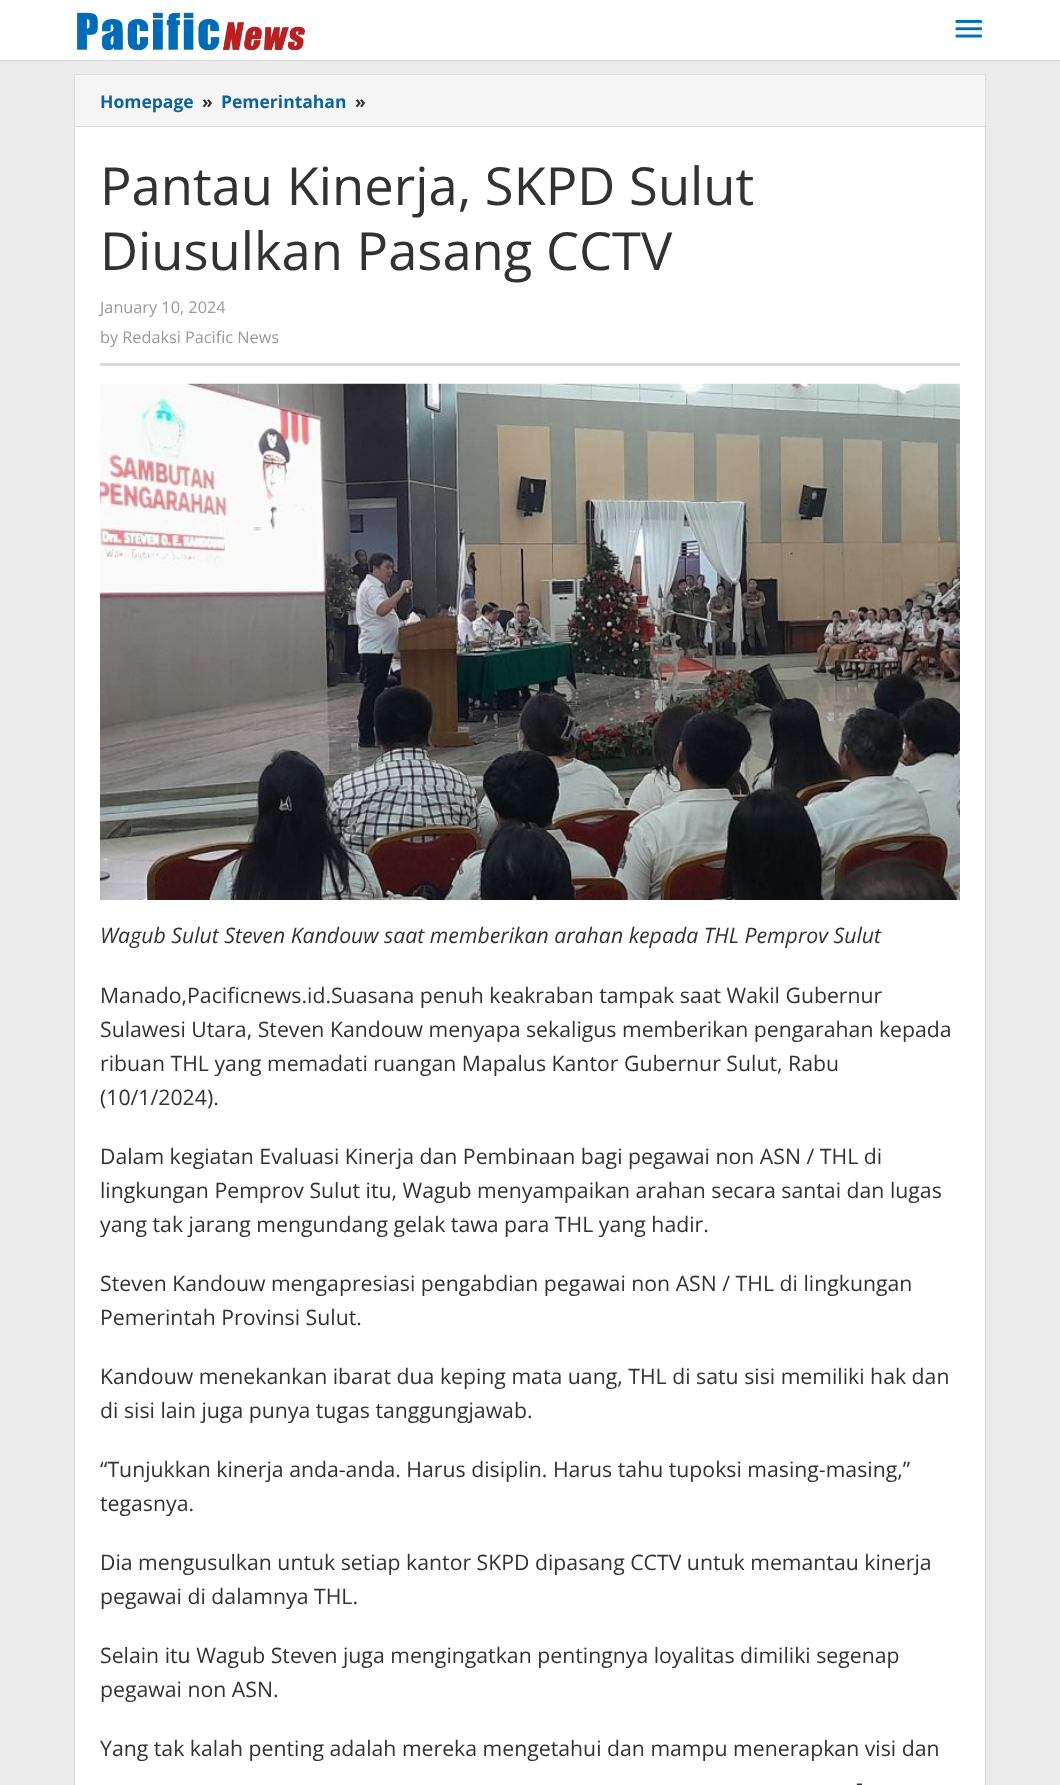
async function draw(canvas) {
  canvas.width = 1060;
  canvas.height = 1785;
  const ctx = canvas.getContext('2d');
  ctx.miterLimit = 4;
  ctx.fontKerning = 'normal';
  function label(s, x, y, font, color) {
    ctx.font = font;
    ctx.fillStyle = color;
    ctx.fillText(s, x, y);
  }
  function rect(x, y, w, h, color) {
    ctx.fillStyle = color;
    ctx.fillRect(x, y, w, h);
  }
  async function image(src, x, y, w, h) {
    const img = new Image();
    img.src = src;
    await img.decode();
    ctx.drawImage(img, x, y, w, h);
  }

  rect(0, 0, 1060, 1785, '#ebebeb');
  rect(0, 0, 1060, 60, '#fff');
  rect(0, 60, 1060, 1, '#d9d9d9');
  await image('assets/img1.png', 77, 12, 228, 39);
  await image('assets/img2.png', 955, 20, 27, 18);
  rect(75, 75, 910, 51, '#f5f5f5');
  ctx.strokeStyle = '#ddd';
  ctx.strokeRect(74.5, 74.5, 911, 53);
  label('Homepage', 100, 108, 'bold 17.5px Open Sans', '#0b63a1');
  label('»', 202, 108, 'bold 17.5px Open Sans', '#323233');
  label('Pemerintahan', 221, 108, 'bold 17.5px Open Sans', '#0b63a1');
  label('»', 355, 108, 'bold 17.5px Open Sans', '#323233');
  ctx.fillStyle = '#fff';
  ctx.beginPath();
  ctx.rect(74.5, 126.5, 911, 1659);
  ctx.fill();
  ctx.strokeStyle = '#d9d9d9';
  ctx.stroke();
  rect(100, 363, 860, 3, '#d9d9d9');
  label('Pantau Kinerja, SKPD Sulut', 100, 205, '52.5px Open Sans', '#323233');
  label('Diusulkan Pasang CCTV', 100, 270, '52.5px Open Sans', '#323233');
  label('January 10, 2024', 100, 313, '16.25px Open Sans', '#999');
  label('by Redaksi Pacific News', 100, 343, '16.25px Open Sans', '#999');
  await image('assets/img3.png', 100, 383, 860, 517);
  label('Wagub Sulut Steven Kandouw saat memberikan arahan kepada THL Pemprov Sulut', 100, 943, 'italic 21.25px Open Sans', '#323233');
  label('Manado,Pacificnews.id.Suasana penuh keakraban tampak saat Wakil Gubernur', 100, 1003, '21.25px Open Sans', '#323233');
  label('Sulawesi Utara, Steven Kandouw menyapa sekaligus memberikan pengarahan kepada', 100, 1037, '21.25px Open Sans', '#323233');
  label('ribuan THL yang memadati ruangan Mapalus Kantor Gubernur Sulut, Rabu', 100, 1071, '21.25px Open Sans', '#323233');
  label('(10/1/2024).', 100, 1105, '21.25px Open Sans', '#323233');
  label('Dalam kegiatan Evaluasi Kinerja dan Pembinaan bagi pegawai non ASN / THL di', 100, 1164, '21.25px Open Sans', '#323233');
  label('lingkungan Pemprov Sulut itu, Wagub menyampaikan arahan secara santai dan lugas', 100, 1198, '21.25px Open Sans', '#323233');
  label('yang tak jarang mengundang gelak tawa para THL yang hadir.', 100, 1232, '21.25px Open Sans', '#323233');
  label('Steven Kandouw mengapresiasi pengabdian pegawai non ASN / THL di lingkungan', 100, 1291, '21.25px Open Sans', '#323233');
  label('Pemerintah Provinsi Sulut.', 100, 1325, '21.25px Open Sans', '#323233');
  label('Kandouw menekankan ibarat dua keping mata uang, THL di satu sisi memiliki hak dan', 100, 1384, '21.25px Open Sans', '#323233');
  label('di sisi lain juga punya tugas tanggungjawab.', 100, 1418, '21.25px Open Sans', '#323233');
  label('“Tunjukkan kinerja anda-anda. Harus disiplin. Harus tahu tupoksi masing-masing,”', 100, 1477, '21.25px Open Sans', '#323233');
  label('tegasnya.', 100, 1511, '21.25px Open Sans', '#323233');
  label('Dia mengusulkan untuk setiap kantor SKPD dipasang CCTV untuk memantau kinerja', 100, 1570, '21.25px Open Sans', '#323233');
  label('pegawai di dalamnya THL.', 100, 1604, '21.25px Open Sans', '#323233');
  label('Selain itu Wagub Steven juga mengingatkan pentingnya loyalitas dimiliki segenap', 100, 1663, '21.25px Open Sans', '#323233');
  label('pegawai non ASN.', 100, 1697, '21.25px Open Sans', '#323233');
  label('Yang tak kalah penting adalah mereka mengetahui dan mampu menerapkan visi dan', 100, 1756, '21.25px Open Sans', '#323233');
  label('-', 856, 1790, '21.25px Open Sans', '#323233');
}

draw(document.querySelector('canvas'));
